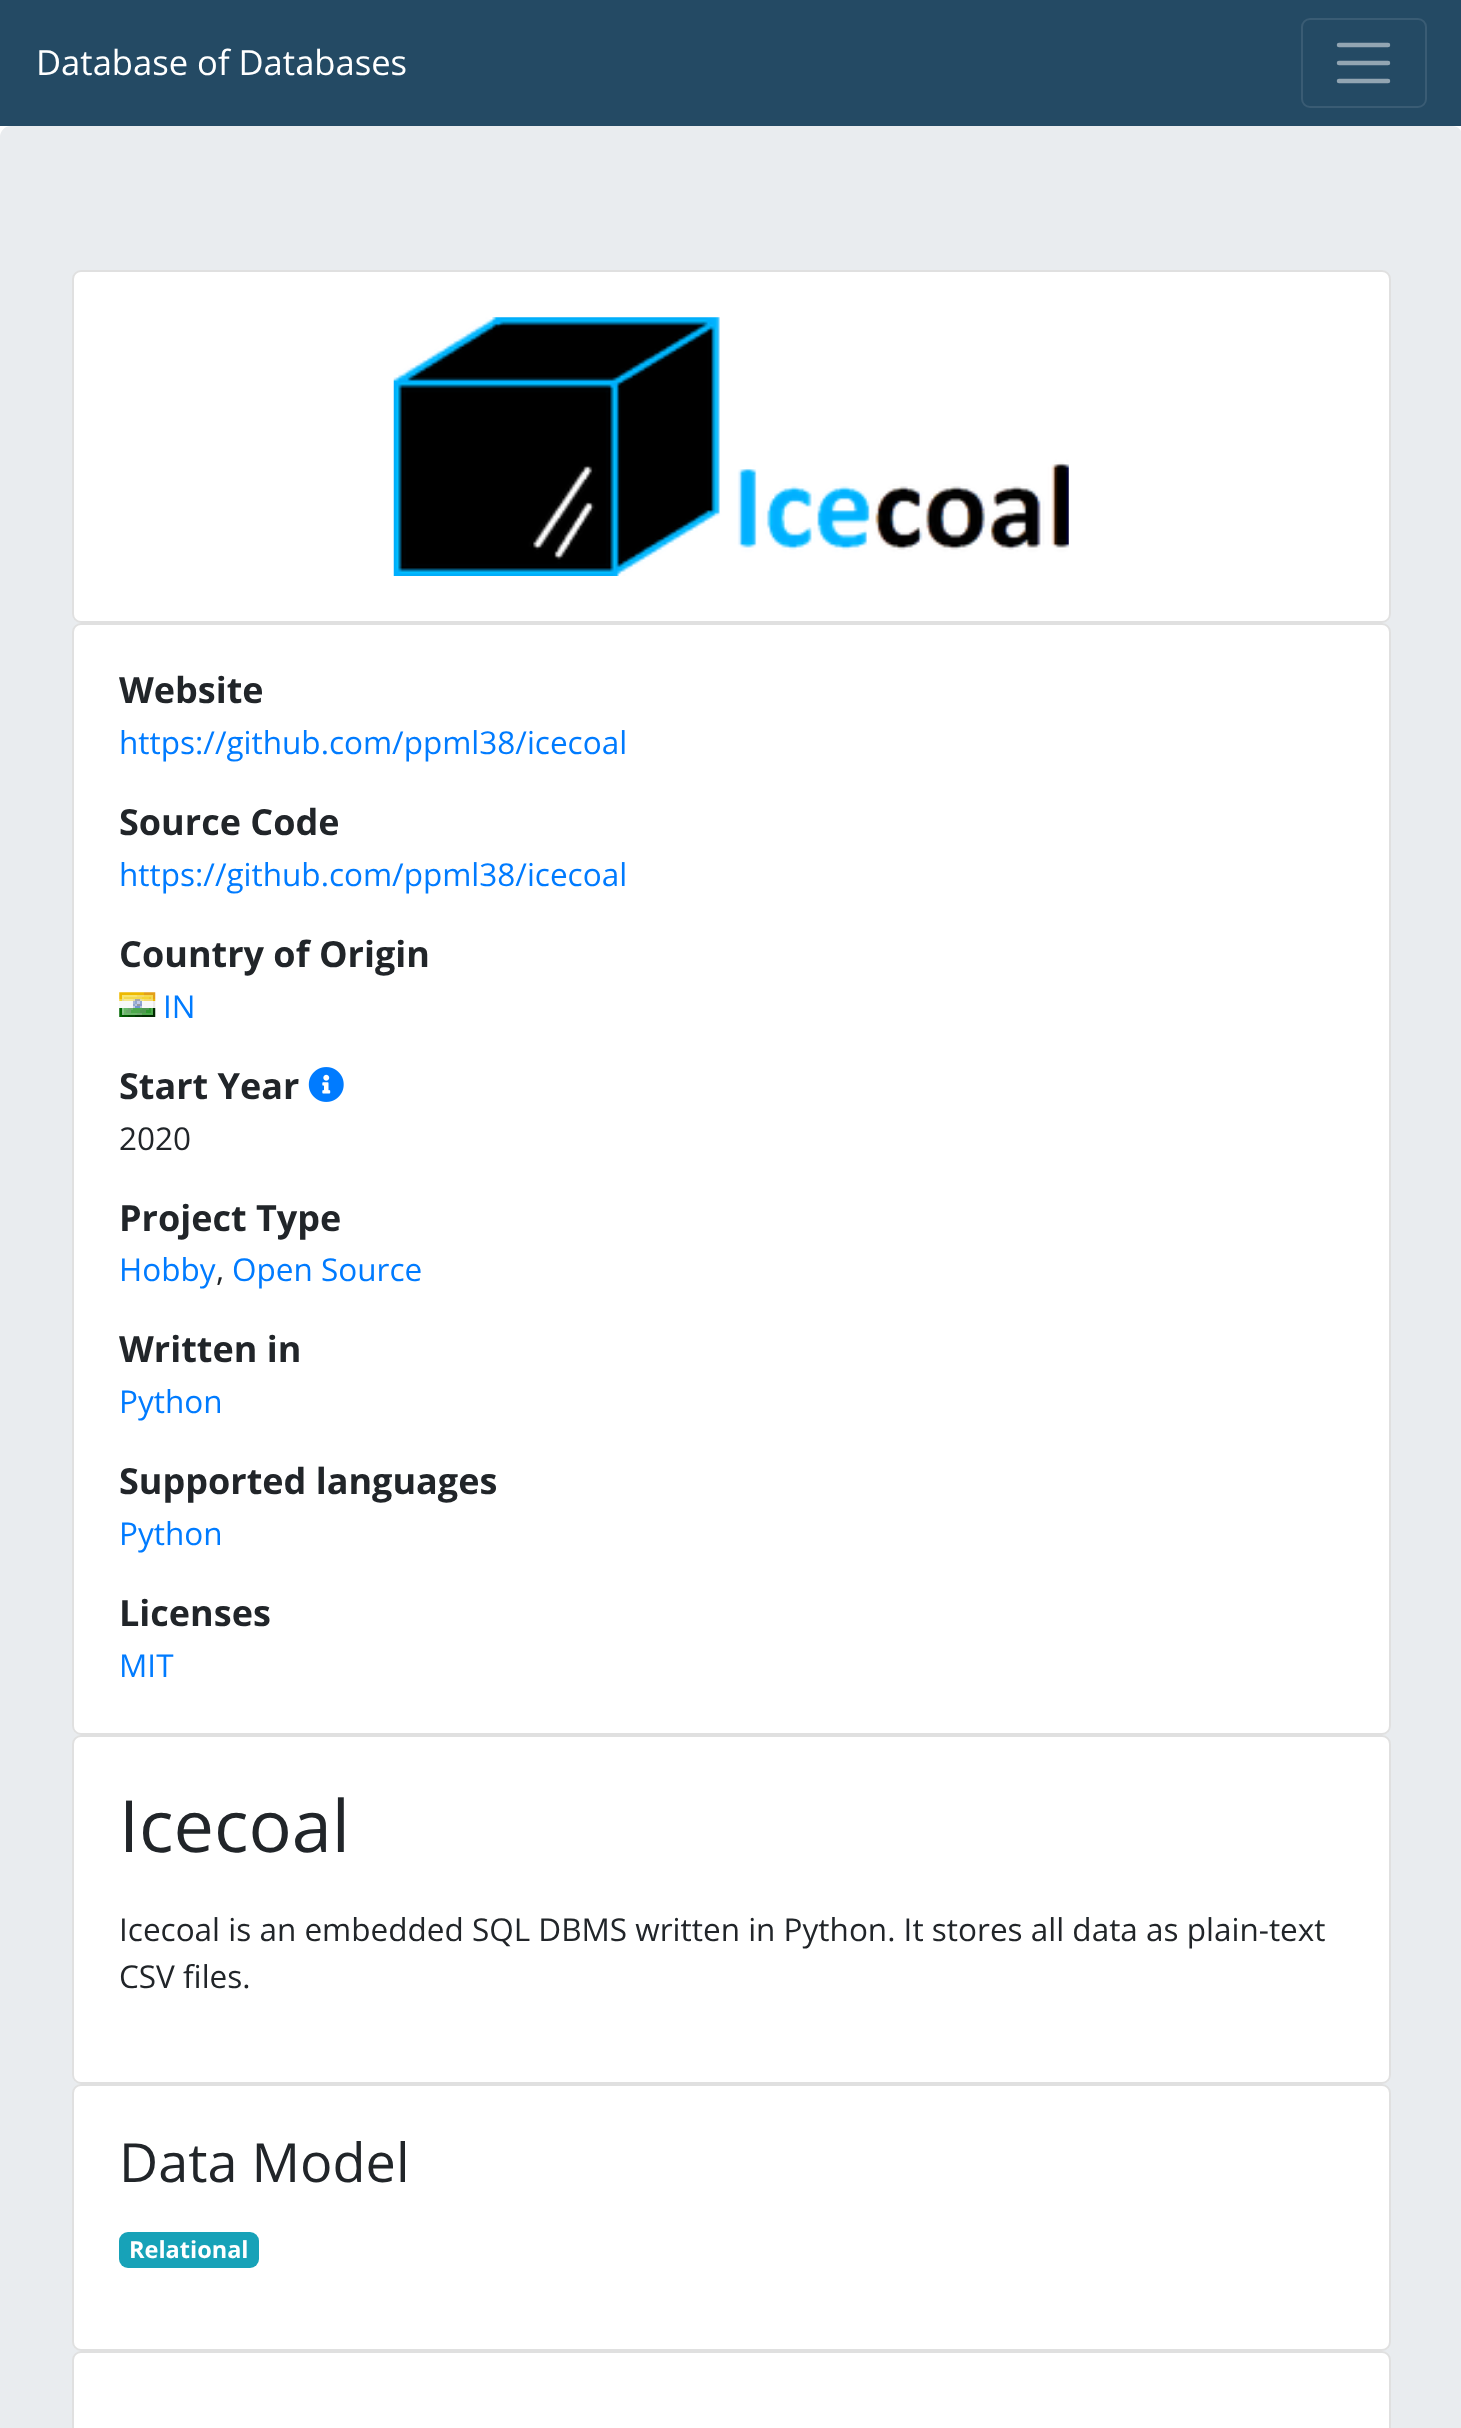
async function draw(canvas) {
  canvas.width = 1461;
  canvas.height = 2428;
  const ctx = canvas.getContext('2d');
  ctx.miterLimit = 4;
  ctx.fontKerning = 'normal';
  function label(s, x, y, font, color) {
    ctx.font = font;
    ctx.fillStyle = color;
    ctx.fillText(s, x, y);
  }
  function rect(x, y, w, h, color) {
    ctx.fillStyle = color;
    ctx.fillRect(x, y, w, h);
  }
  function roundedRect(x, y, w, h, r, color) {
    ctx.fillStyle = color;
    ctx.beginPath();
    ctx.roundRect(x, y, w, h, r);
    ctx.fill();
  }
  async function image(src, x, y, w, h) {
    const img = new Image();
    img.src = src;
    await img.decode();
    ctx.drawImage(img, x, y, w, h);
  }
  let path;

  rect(0, 0, 1461, 2428, '#fff');
  rect(0, 0, 1461, 126, '#244a64');
  label('Database of Databases', 36, 75, '34.6px Open Sans', '#fff');
  ctx.beginPath();
  ctx.roundRect(1302, 19, 124, 88, 8);
  ctx.strokeStyle = '#3a5c74';
  ctx.lineWidth = 2;
  ctx.stroke();
  path = new Path2D('M1339 45H1388M1339 63H1388M1339 81H1388');
  ctx.strokeStyle = '#92a5b2';
  ctx.lineWidth = 4.5;
  ctx.lineCap = 'round';
  ctx.stroke(path);
  roundedRect(0, 126, 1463, 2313, 11, '#e9ecef');
  roundedRect(72, 270, 1319, 353, 9, '#fff');
  ctx.beginPath();
  ctx.roundRect(73, 271, 1317, 351, 8);
  ctx.strokeStyle = '#0000001f';
  ctx.lineWidth = 2;
  ctx.stroke();
  await image('assets/img1.png', 393, 317, 676, 259);
  roundedRect(72, 623, 1319, 1112, 9, '#fff');
  ctx.beginPath();
  ctx.roundRect(73, 624, 1317, 1110, 8);
  ctx.stroke();
  label('Website', 119, 703, 'bold 36px Open Sans', '#212529');
  label('https://github.com/ppml38/icecoal', 119, 754, '31.5px Open Sans', '#007bff');
  label('Source Code', 119, 835, 'bold 36px Open Sans', '#212529');
  label('https://github.com/ppml38/icecoal', 119, 886, '31.5px Open Sans', '#007bff');
  label('Country of Origin', 119, 967, 'bold 36px Open Sans', '#212529');
  await image('assets/img2.png', 119, 992, 37, 25);
  label('IN', 163, 1018, '31.5px Open Sans', '#007bff');
  label('Start Year', 119, 1099, 'bold 36px Open Sans', '#212529');
  await image('assets/img3.png', 308, 1067, 36, 35);
  label('2020', 119, 1150, '31.5px Open Sans', '#212529');
  label('Project Type', 119, 1231, 'bold 36px Open Sans', '#212529');
  label('Hobby', 119, 1281, '31.5px Open Sans', '#007bff');
  label(',', 216, 1281, '31.5px Open Sans', '#212529');
  label('Open Source', 232, 1281, '31.5px Open Sans', '#007bff');
  label('Written in', 119, 1362, 'bold 36px Open Sans', '#212529');
  label('Python', 119, 1413, '31.5px Open Sans', '#007bff');
  label('Supported languages', 119, 1494, 'bold 36px Open Sans', '#212529');
  label('Python', 119, 1545, '31.5px Open Sans', '#007bff');
  label('Licenses', 119, 1626, 'bold 36px Open Sans', '#212529');
  label('MIT', 119, 1677, '31.5px Open Sans', '#007bff');
  roundedRect(72, 1735, 1319, 349, 9, '#fff');
  ctx.beginPath();
  ctx.roundRect(73, 1736, 1317, 347, 8);
  ctx.stroke();
  label('Icecoal', 119, 1852, '72px Open Sans', '#212529');
  label('Icecoal is an embedded SQL DBMS written in Python. It stores all data as plain-text', 119, 1941, '31.5px Open Sans', '#212529');
  label('CSV files.', 119, 1988, '31.5px Open Sans', '#212529');
  roundedRect(72, 2084, 1319, 267, 9, '#fff');
  ctx.beginPath();
  ctx.roundRect(73, 2085, 1317, 265, 8);
  ctx.stroke();
  label('Data Model', 119, 2182, '54px Open Sans', '#212529');
  roundedRect(119, 2232, 140, 36, 9, '#17a2b8');
  label('Relational', 129, 2258, 'bold 23.5px Open Sans', '#fff');
  roundedRect(72, 2351, 1319, 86, 9, '#fff');
  ctx.beginPath();
  ctx.roundRect(73, 2352, 1317, 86, 8);
  ctx.stroke();
}

draw(document.querySelector('canvas'));
